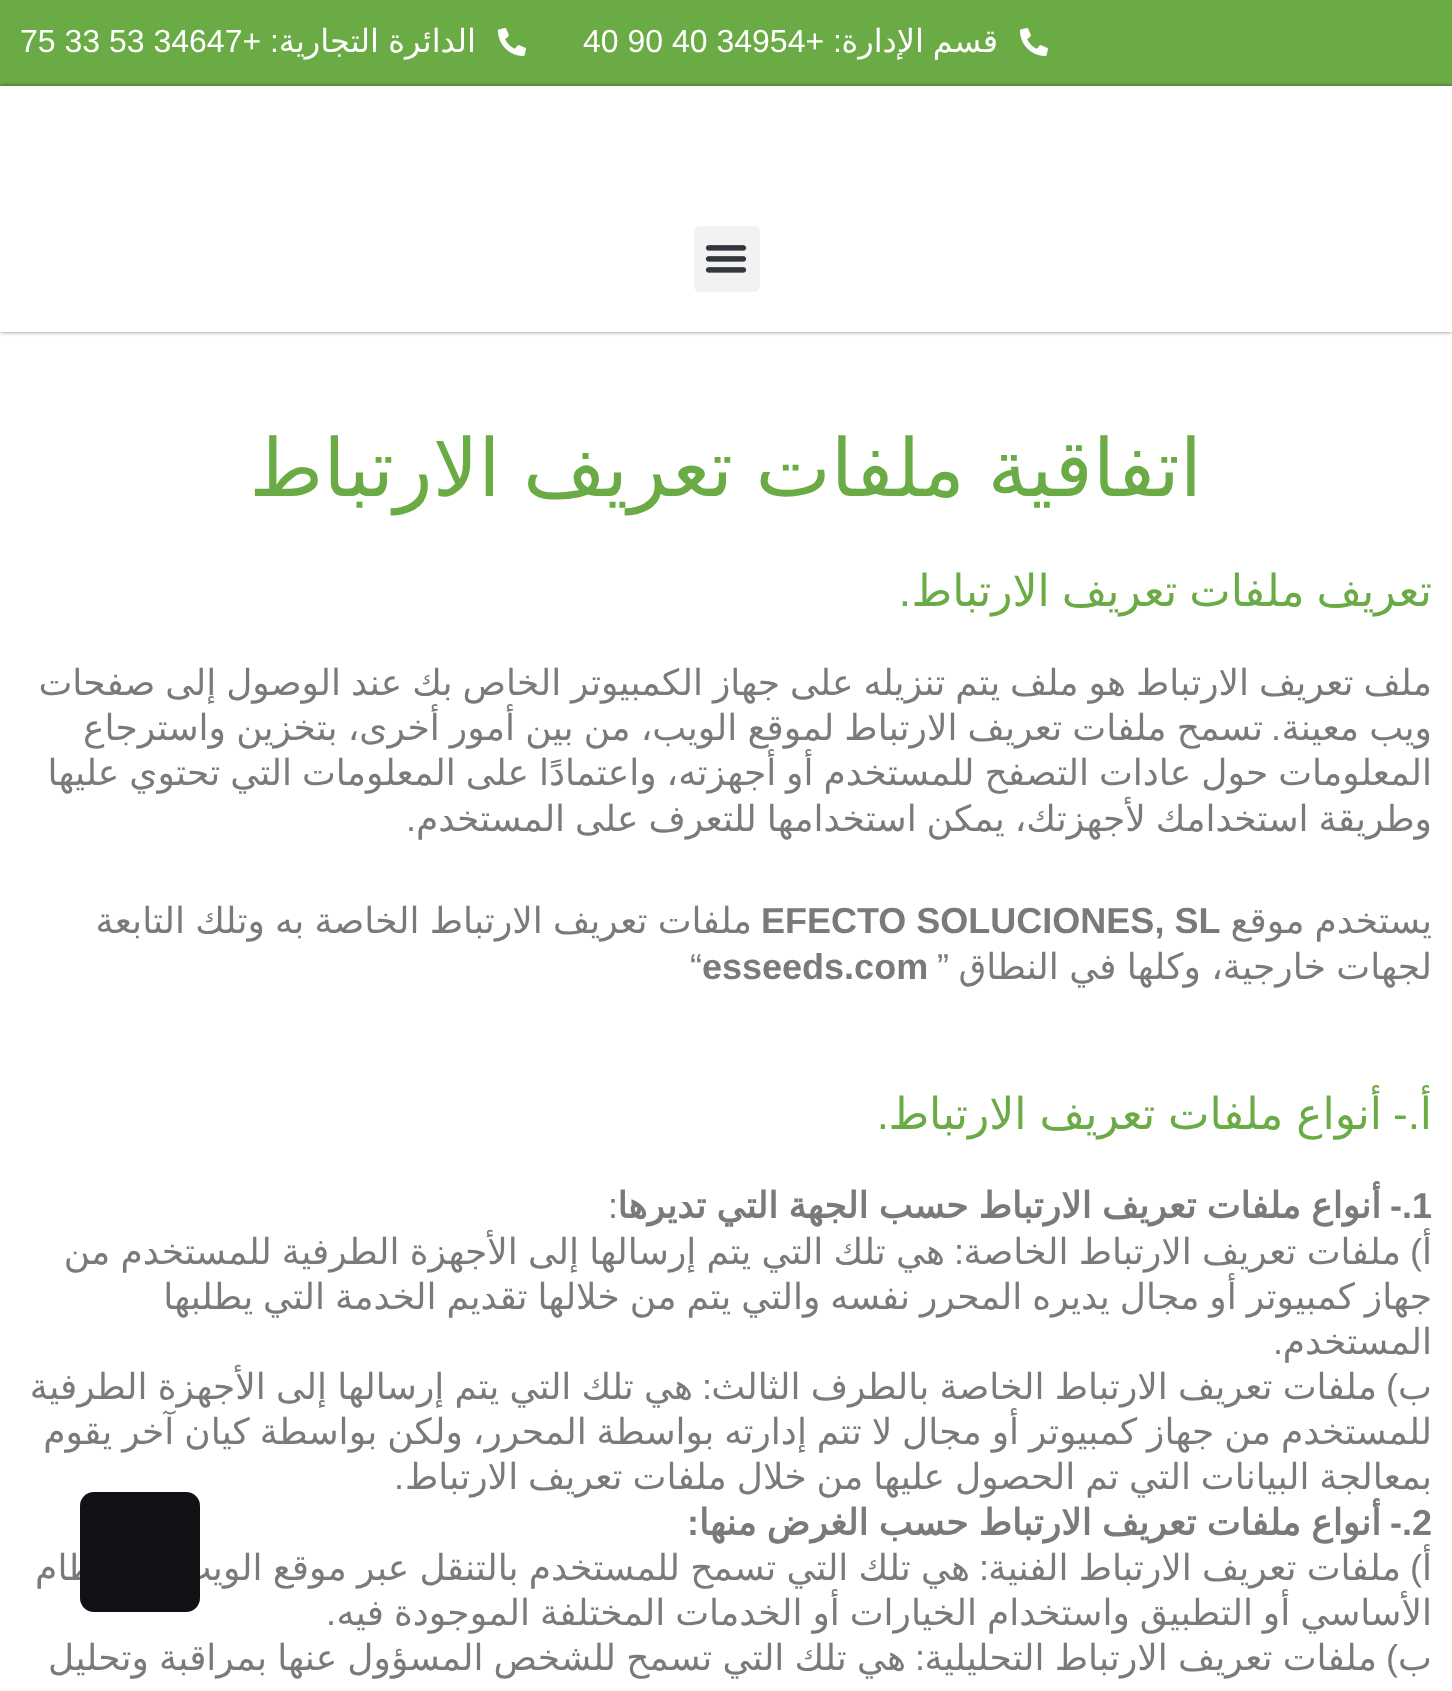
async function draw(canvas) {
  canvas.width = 1452;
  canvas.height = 1691;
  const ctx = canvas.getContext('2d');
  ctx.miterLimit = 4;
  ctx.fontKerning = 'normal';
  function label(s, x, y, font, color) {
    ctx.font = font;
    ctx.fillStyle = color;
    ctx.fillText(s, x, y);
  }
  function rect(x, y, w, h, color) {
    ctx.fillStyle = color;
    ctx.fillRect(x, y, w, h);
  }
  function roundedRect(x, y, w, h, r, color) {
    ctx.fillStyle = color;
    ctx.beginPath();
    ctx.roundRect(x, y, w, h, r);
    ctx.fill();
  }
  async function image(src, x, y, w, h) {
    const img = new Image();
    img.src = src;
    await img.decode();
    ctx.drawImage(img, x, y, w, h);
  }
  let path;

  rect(0, 0, 1452, 1691, '#fff');
  rect(0, 0, 1452, 86, '#6bab46');
  await image('assets/img1.png', 1020, 28, 28, 28);
  ctx.direction = 'rtl';
  label('قسم', 998, 52, '32px DejaVu Sans', '#fffffe');
  label('الإدارة', 924, 52, '32px DejaVu Sans', '#fffffe');
  label(': +', 842, 52, '32px Liberation Sans', '#fffffe');
  ctx.direction = 'ltr';
  label('40 90 40 34954', 583, 52, '32px Liberation Sans', '#fffffe');
  await image('assets/img1.png', 498, 28, 28, 28);
  ctx.direction = 'rtl';
  label('الدائرة', 476, 52, '32px DejaVu Sans', '#fffffe');
  label('التجارية', 379, 52, '32px DejaVu Sans', '#fffffe');
  label(': +', 279, 52, '32px Liberation Sans', '#fffffe');
  ctx.direction = 'ltr';
  label('75 33 53 34647', 20, 52, '32px Liberation Sans', '#fffffe');
  ctx.save();
  path = new Path2D('M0 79H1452V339H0ZM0 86H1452V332H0Z');
  ctx.clip(path, 'evenodd');
  ctx.fillStyle = '#00000080';
  ctx.filter = 'blur(2px)';
  ctx.beginPath();
  ctx.rect(0, 86, 1452, 246);
  ctx.fill();
  ctx.filter = 'none';
  ctx.restore();
  roundedRect(694, 226, 66, 66, 6, '#f2f2f2');
  await image('assets/img2.png', 705, 245, 42, 28);
  ctx.wordSpacing = '-3px';
  ctx.direction = 'rtl';
  label('اتفاقية ملفات تعريف الارتباط', 1202, 496, '80px DejaVu Sans', '#6bab46');
  ctx.wordSpacing = '-2px';
  label('تعريف ملفات تعريف الارتباط', 1432, 606, '44px DejaVu Sans', '#6bab46');
  ctx.wordSpacing = '0px';
  label('.', 911, 606, '44px Liberation Sans', '#6bab46');
  ctx.wordSpacing = '-1.5px';
  label('ملف تعريف الارتباط هو ملف يتم تنزيله على جهاز الكمبيوتر الخاص بك عند الوصول إلى صفحات', 1432, 695, '36px DejaVu Sans', '#7a7a7a');
  ctx.wordSpacing = '-1.25px';
  label('ويب معينة', 1432, 740, '36px DejaVu Sans', '#7a7a7a');
  label('تسمح ملفات تعريف الارتباط لموقع الويب، من بين أمور أخرى، بتخزين واسترجاع', 1263, 740, '36px DejaVu Sans', '#7a7a7a');
  ctx.wordSpacing = '0px';
  label('.', 1281, 740, '36px Liberation Sans', '#7a7a7a');
  ctx.wordSpacing = '-1.5px';
  label('المعلومات حول عادات التصفح للمستخدم أو أجهزته، واعتمادًا على المعلومات التي تحتوي عليها', 1432, 785, '36px DejaVu Sans', '#7a7a7a');
  label('وطريقة استخدامك لأجهزتك، يمكن استخدامها للتعرف على المستخدم', 1432, 831, '36px DejaVu Sans', '#7a7a7a');
  ctx.wordSpacing = '0px';
  label('.', 416, 831, '36px Liberation Sans', '#7a7a7a');
  ctx.wordSpacing = '-1.5px';
  label('يستخدم موقع', 1432, 933, '36px DejaVu Sans', '#7a7a7a');
  ctx.wordSpacing = '0px';
  ctx.direction = 'ltr';
  label('EFECTO SOLUCIONES, SL', 761, 933, 'bold 36px Liberation Sans', '#7a7a7a');
  ctx.wordSpacing = '-1.25px';
  ctx.direction = 'rtl';
  label('ملفات تعريف الارتباط الخاصة به وتلك التابعة', 752, 933, '36px DejaVu Sans', '#7a7a7a');
  ctx.wordSpacing = '-1px';
  label('لجهات خارجية، وكلها في النطاق', 1432, 979, '36px DejaVu Sans', '#7a7a7a');
  ctx.wordSpacing = '0px';
  label('”', 949, 979, '36px Liberation Sans', '#7a7a7a');
  ctx.direction = 'ltr';
  label('esseeds.com', 702, 979, 'bold 36px Liberation Sans', '#7a7a7a');
  label('“', 690, 979, '36px Liberation Sans', '#7a7a7a');
  ctx.direction = 'rtl';
  label('أ', 1432, 1129, '44px DejaVu Sans', '#6bab46');
  label('.-', 1420, 1129, '44px Liberation Sans', '#6bab46');
  ctx.wordSpacing = '-1px';
  label('أنواع ملفات تعريف الارتباط', 1382, 1129, '44px DejaVu Sans', '#6bab46');
  ctx.wordSpacing = '0px';
  label('.', 889, 1129, '44px Liberation Sans', '#6bab46');
  ctx.direction = 'ltr';
  label('1', 1412, 1218, 'bold 36px Liberation Sans', '#7a7a7a');
  ctx.direction = 'rtl';
  label('.-', 1412, 1218, 'bold 36px Liberation Sans', '#7a7a7a');
  ctx.wordSpacing = '-1.25px';
  label('أنواع ملفات تعريف الارتباط حسب الجهة التي تديرها', 1381, 1218, 'bold 36px DejaVu Sans', '#7a7a7a');
  ctx.wordSpacing = '0px';
  ctx.direction = 'ltr';
  label(':', 608, 1218, '36px Liberation Sans', '#7a7a7a');
  ctx.direction = 'rtl';
  label('أ', 1432, 1264, '36px DejaVu Sans', '#7a7a7a');
  label(')', 1422, 1264, '36px Liberation Sans', '#7a7a7a');
  ctx.wordSpacing = '-1.25px';
  label('ملفات تعريف الارتباط الخاصة', 1401, 1264, '36px DejaVu Sans', '#7a7a7a');
  ctx.wordSpacing = '0px';
  label(':', 964, 1264, '36px Liberation Sans', '#7a7a7a');
  ctx.wordSpacing = '-1.25px';
  label('هي تلك التي يتم إرسالها إلى الأجهزة الطرفية للمستخدم من', 945, 1264, '36px DejaVu Sans', '#7a7a7a');
  ctx.wordSpacing = '-1.5px';
  label('جهاز كمبيوتر أو مجال يديره المحرر نفسه والتي يتم من خلالها تقديم الخدمة التي يطلبها', 1432, 1309, '36px DejaVu Sans', '#7a7a7a');
  ctx.wordSpacing = '0px';
  label('المستخدم', 1432, 1354, '36px DejaVu Sans', '#7a7a7a');
  label('.', 1283, 1354, '36px Liberation Sans', '#7a7a7a');
  label('ب', 1432, 1399, '36px DejaVu Sans', '#7a7a7a');
  label(')', 1398, 1399, '36px Liberation Sans', '#7a7a7a');
  ctx.wordSpacing = '-1.25px';
  label('ملفات تعريف الارتباط الخاصة بالطرف الثالث', 1377, 1399, '36px DejaVu Sans', '#7a7a7a');
  ctx.wordSpacing = '0px';
  label(':', 712, 1399, '36px Liberation Sans', '#7a7a7a');
  ctx.wordSpacing = '-1.25px';
  label('هي تلك التي يتم إرسالها إلى الأجهزة الطرفية', 693, 1399, '36px DejaVu Sans', '#7a7a7a');
  ctx.wordSpacing = '-1.5px';
  label('للمستخدم من جهاز كمبيوتر أو مجال لا تتم إدارته بواسطة المحرر، ولكن بواسطة كيان آخر يقوم', 1432, 1444, '36px DejaVu Sans', '#7a7a7a');
  label('بمعالجة البيانات التي تم الحصول عليها من خلال ملفات تعريف الارتباط', 1432, 1489, '36px DejaVu Sans', '#7a7a7a');
  ctx.wordSpacing = '0px';
  label('.', 404, 1489, '36px Liberation Sans', '#7a7a7a');
  ctx.direction = 'ltr';
  label('2', 1412, 1535, 'bold 36px Liberation Sans', '#7a7a7a');
  ctx.direction = 'rtl';
  label('.-', 1412, 1535, 'bold 36px Liberation Sans', '#7a7a7a');
  ctx.wordSpacing = '-1.25px';
  label('أنواع ملفات تعريف الارتباط حسب الغرض منها', 1381, 1535, 'bold 36px DejaVu Sans', '#7a7a7a');
  ctx.wordSpacing = '0px';
  label(':', 699, 1535, 'bold 36px Liberation Sans', '#7a7a7a');
  label('أ', 1432, 1580, '36px DejaVu Sans', '#7a7a7a');
  label(')', 1422, 1580, '36px Liberation Sans', '#7a7a7a');
  ctx.wordSpacing = '-1.25px';
  label('ملفات تعريف الارتباط الفنية', 1401, 1580, '36px DejaVu Sans', '#7a7a7a');
  ctx.wordSpacing = '0px';
  label(':', 989, 1580, '36px Liberation Sans', '#7a7a7a');
  ctx.wordSpacing = '-1.25px';
  label('هي تلك التي تسمح للمستخدم بالتنقل عبر موقع الويب أو النظام', 970, 1580, '36px DejaVu Sans', '#7a7a7a');
  ctx.wordSpacing = '-1.5px';
  label('الأساسي أو التطبيق واستخدام الخيارات أو الخدمات المختلفة الموجودة فيه', 1432, 1625, '36px DejaVu Sans', '#7a7a7a');
  ctx.wordSpacing = '0px';
  label('.', 336, 1625, '36px Liberation Sans', '#7a7a7a');
  label('ب', 1432, 1670, '36px DejaVu Sans', '#7a7a7a');
  label(')', 1398, 1670, '36px Liberation Sans', '#7a7a7a');
  ctx.wordSpacing = '-1.25px';
  label('ملفات تعريف الارتباط التحليلية', 1377, 1670, '36px DejaVu Sans', '#7a7a7a');
  ctx.wordSpacing = '0px';
  label(':', 925, 1670, '36px Liberation Sans', '#7a7a7a');
  ctx.wordSpacing = '-1.25px';
  label('هي تلك التي تسمح للشخص المسؤول عنها بمراقبة وتحليل', 906, 1670, '36px DejaVu Sans', '#7a7a7a');
  roundedRect(80, 1492, 120, 120, 14, '#121116');
}

draw(document.querySelector('canvas'));
